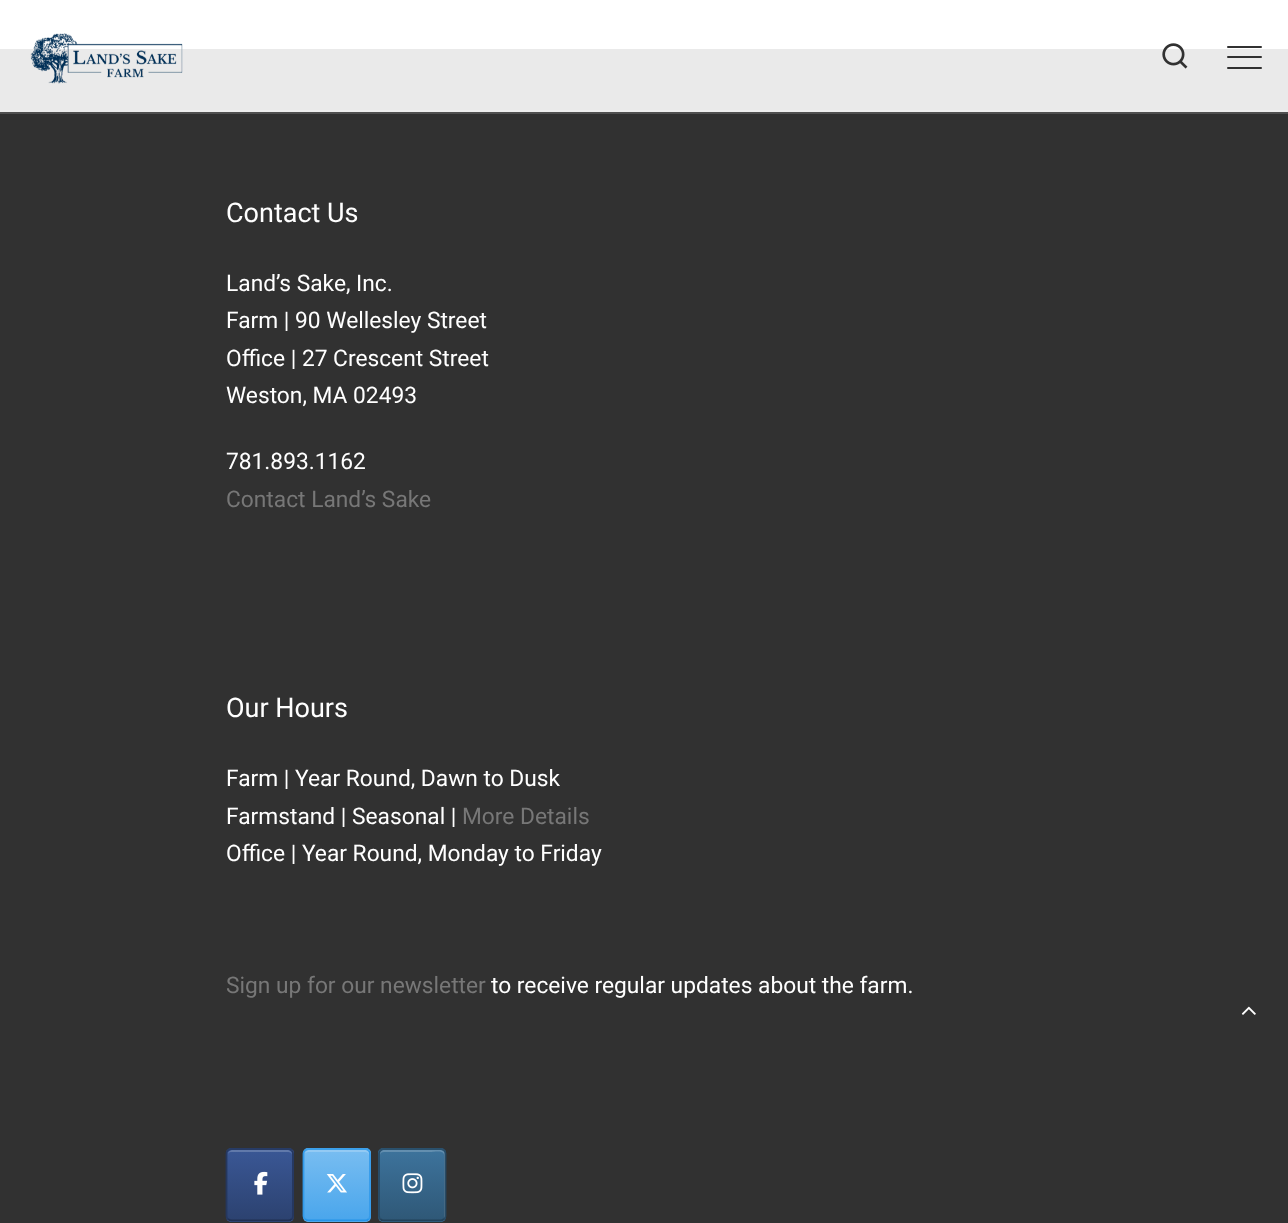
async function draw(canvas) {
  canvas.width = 1288;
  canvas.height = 1223;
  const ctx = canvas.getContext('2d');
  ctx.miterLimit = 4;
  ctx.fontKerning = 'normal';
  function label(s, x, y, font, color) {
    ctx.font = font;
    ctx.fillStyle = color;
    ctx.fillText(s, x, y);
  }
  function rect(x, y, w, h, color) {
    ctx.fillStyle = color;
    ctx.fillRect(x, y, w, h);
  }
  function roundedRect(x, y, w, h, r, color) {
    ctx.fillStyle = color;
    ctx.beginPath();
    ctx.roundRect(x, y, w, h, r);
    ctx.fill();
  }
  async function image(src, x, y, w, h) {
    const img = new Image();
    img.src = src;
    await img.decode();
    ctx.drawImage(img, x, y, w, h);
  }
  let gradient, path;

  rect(0, 0, 1288, 1223, '#fff');
  rect(0, 112, 1288, 2, '#505050');
  rect(0, 49, 1288, 61, '#eaeaea');
  await image('assets/img1.png', 30, 33, 153, 51);
  await image('assets/img2.png', 1162, 43, 26, 26);
  roundedRect(1227, 46, 35, 2, 1, '#313131');
  roundedRect(1227, 56, 35, 2, 1, '#313131');
  roundedRect(1227, 67, 35, 2, 1, '#313131');
  rect(0, 110, 1288, 2, '#eee');
  rect(0, 114, 1288, 1109, '#313131');
  label('Contact Us', 226, 222, '27px Roboto', '#fff');
  label('Land’s Sake, Inc.', 226, 291, '22.75px Roboto', '#fff');
  label('Farm | 90 Wellesley Street', 226, 328, '22.75px Roboto', '#fff');
  label('Office | 27 Crescent Street', 226, 366, '22.75px Roboto', '#fff');
  label('Weston, MA 02493', 226, 403, '22.75px Roboto', '#fff');
  label('781.893.1162', 226, 469, '22.75px Roboto', '#fff');
  label('Contact Land’s Sake', 226, 507, '22.75px Roboto', '#777');
  label('Our Hours', 226, 717, '27px Roboto', '#fff');
  label('Farm | Year Round, Dawn to Dusk', 226, 786, '22.75px Roboto', '#fff');
  label('Farmstand | Seasonal |', 226, 824, '22.75px Roboto', '#fff');
  label('More Details', 462, 824, '22.75px Roboto', '#777');
  label('Office | Year Round, Monday to Friday', 226, 861, '22.75px Roboto', '#fff');
  label('Sign up for our newsletter', 226, 993, '22.75px Roboto', '#777');
  label('to receive regular updates about the farm.', 491, 993, '22.75px Roboto', '#fff');
  ctx.save();
  ctx.beginPath();
  ctx.roundRect(226, 1148, 68, 74, 5);
  ctx.clip();
  gradient = ctx.createLinearGradient(228, 1150, 228, 1080);
  gradient.addColorStop(0, '#2c4270');
  gradient.addColorStop(1, '#3a5795');
  ctx.fillStyle = gradient;
  ctx.fillRect(226, 1148, 68, 2);
  gradient = ctx.createLinearGradient(228, 1220, 228, 1150);
  gradient.addColorStop(0, '#2c4270');
  gradient.addColorStop(1, '#3a5795');
  ctx.fillStyle = gradient;
  ctx.fillRect(226, 1150, 68, 70);
  gradient = ctx.createLinearGradient(228, 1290, 228, 1220);
  gradient.addColorStop(0, '#2c4270');
  gradient.addColorStop(1, '#3a5795');
  ctx.fillStyle = gradient;
  ctx.fillRect(226, 1220, 68, 2);
  ctx.restore();
  ctx.fillStyle = '#6179aa';
  path = new Path2D('M231 1152H288C290 1152 292 1153 292 1155C292 1148 284 1150 279 1150H241C236 1150 228 1148 228 1155C228 1153 229 1152 231 1152Z');
  ctx.fill(path);
  path = new Path2D('M228 1150.5C229 1149.5 230 1149 231.5 1149H288.5C289.5 1149 291 1149.5 291.5 1150.5');
  ctx.strokeStyle = '#273b65';
  ctx.lineWidth = 1.8;
  ctx.stroke(path);
  path = new Path2D('M291.5 1150.5C292.5 1151 293 1152.5 293 1153.5V1216C293 1217 292.5 1218.5 291.5 1219');
  ctx.strokeStyle = '#25375e';
  ctx.stroke(path);
  path = new Path2D('M291.5 1219C291 1220 289.5 1220.5 288.5 1220.5H231.5C230 1220.5 229 1220 228 1219');
  ctx.strokeStyle = '#203053';
  ctx.stroke(path);
  path = new Path2D('M228 1219C227 1218.5 226.5 1217 226.5 1216V1153.5C226.5 1152.5 227 1151 228 1150.5');
  ctx.strokeStyle = '#25375e';
  ctx.stroke(path);
  await image('assets/img3.png', 254, 1171, 14, 24);
  ctx.save();
  ctx.beginPath();
  ctx.roundRect(303, 1148, 68, 74, 5);
  ctx.clip();
  gradient = ctx.createLinearGradient(305, 1150, 305, 1080);
  gradient.addColorStop(0, '#4aa6ec');
  gradient.addColorStop(1, '#78bdf1');
  ctx.fillStyle = gradient;
  ctx.fillRect(303, 1148, 68, 2);
  gradient = ctx.createLinearGradient(305, 1220, 305, 1150);
  gradient.addColorStop(0, '#4aa6ec');
  gradient.addColorStop(1, '#78bdf1');
  ctx.fillStyle = gradient;
  ctx.fillRect(303, 1150, 68, 70);
  gradient = ctx.createLinearGradient(305, 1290, 305, 1220);
  gradient.addColorStop(0, '#4aa6ec');
  gradient.addColorStop(1, '#78bdf1');
  ctx.fillStyle = gradient;
  ctx.fillRect(303, 1220, 68, 2);
  ctx.restore();
  ctx.fillStyle = '#93caf4';
  path = new Path2D('M308 1152H365C367 1152 369 1153 369 1155V1154C369 1152 367 1150 365 1150H309C307 1150 306 1151 305 1153Z');
  ctx.fill(path);
  path = new Path2D('M305 1150.5C306 1149.5 307 1149 308.5 1149H365.5C366.5 1149 368 1149.5 368.5 1150.5');
  ctx.strokeStyle = '#3ca0eb';
  ctx.stroke(path);
  path = new Path2D('M368.5 1150.5C369.5 1151 370 1152.5 370 1153.5V1216C370 1217 369.5 1218.5 368.5 1219');
  ctx.strokeStyle = '#339bea';
  ctx.stroke(path);
  path = new Path2D('M368.5 1219C368 1220 366.5 1220.5 365.5 1220.5H308.5C307 1220.5 306 1220 305 1219');
  ctx.strokeStyle = '#2594e8';
  ctx.stroke(path);
  path = new Path2D('M305 1219C304 1218.5 303.5 1217 303.5 1216V1153.5C303.5 1152.5 304 1151 305 1150.5');
  ctx.strokeStyle = '#339bea';
  ctx.stroke(path);
  await image('assets/img4.png', 326, 1174, 21, 19);
  ctx.save();
  ctx.beginPath();
  ctx.roundRect(378, 1148, 68, 74, 5);
  ctx.clip();
  gradient = ctx.createLinearGradient(380, 1150, 380, 1080);
  gradient.addColorStop(0, '#2f5877');
  gradient.addColorStop(1, '#3d739c');
  ctx.fillStyle = gradient;
  ctx.fillRect(378, 1148, 68, 2);
  gradient = ctx.createLinearGradient(380, 1220, 380, 1150);
  gradient.addColorStop(0, '#2f5877');
  gradient.addColorStop(1, '#3d739c');
  ctx.fillStyle = gradient;
  ctx.fillRect(378, 1150, 68, 70);
  gradient = ctx.createLinearGradient(380, 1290, 380, 1220);
  gradient.addColorStop(0, '#2f5877');
  gradient.addColorStop(1, '#3d739c');
  ctx.fillStyle = gradient;
  ctx.fillRect(378, 1220, 68, 2);
  ctx.restore();
  ctx.fillStyle = '#ffffff33';
  path = new Path2D('M384 1152H432C433 1152 444 1150 444 1155V1219C445 1218 445 1217 445 1216V1154C445 1152 443 1150 441 1150H384C382 1150 380 1152 380 1154V1155C380 1153 382 1152 384 1152Z');
  ctx.fill(path);
  path = new Path2D('M380.5 1150.5C381 1149.5 382.5 1149 383.5 1149H440.5C442 1149 443 1149.5 444 1150.5');
  ctx.strokeStyle = '#2a506c';
  ctx.stroke(path);
  path = new Path2D('M444 1150.5C445 1151 445.5 1152.5 445.5 1153.5V1216C445.5 1217 445 1218.5 444 1219');
  ctx.strokeStyle = '#274a65';
  ctx.stroke(path);
  path = new Path2D('M444 1219C443 1220 442 1220.5 440.5 1220.5H383.5C382.5 1220.5 381 1220 380.5 1219');
  ctx.strokeStyle = '#23425a';
  ctx.stroke(path);
  path = new Path2D('M380.5 1219C379.5 1218.5 379 1217 379 1216V1153.5C379 1152.5 379.5 1151 380.5 1150.5');
  ctx.strokeStyle = '#274a65';
  ctx.stroke(path);
  await image('assets/img5.png', 402, 1173, 21, 21);
  await image('assets/img6.png', 1241, 1006, 15, 9);
}

draw(document.querySelector('canvas'));
